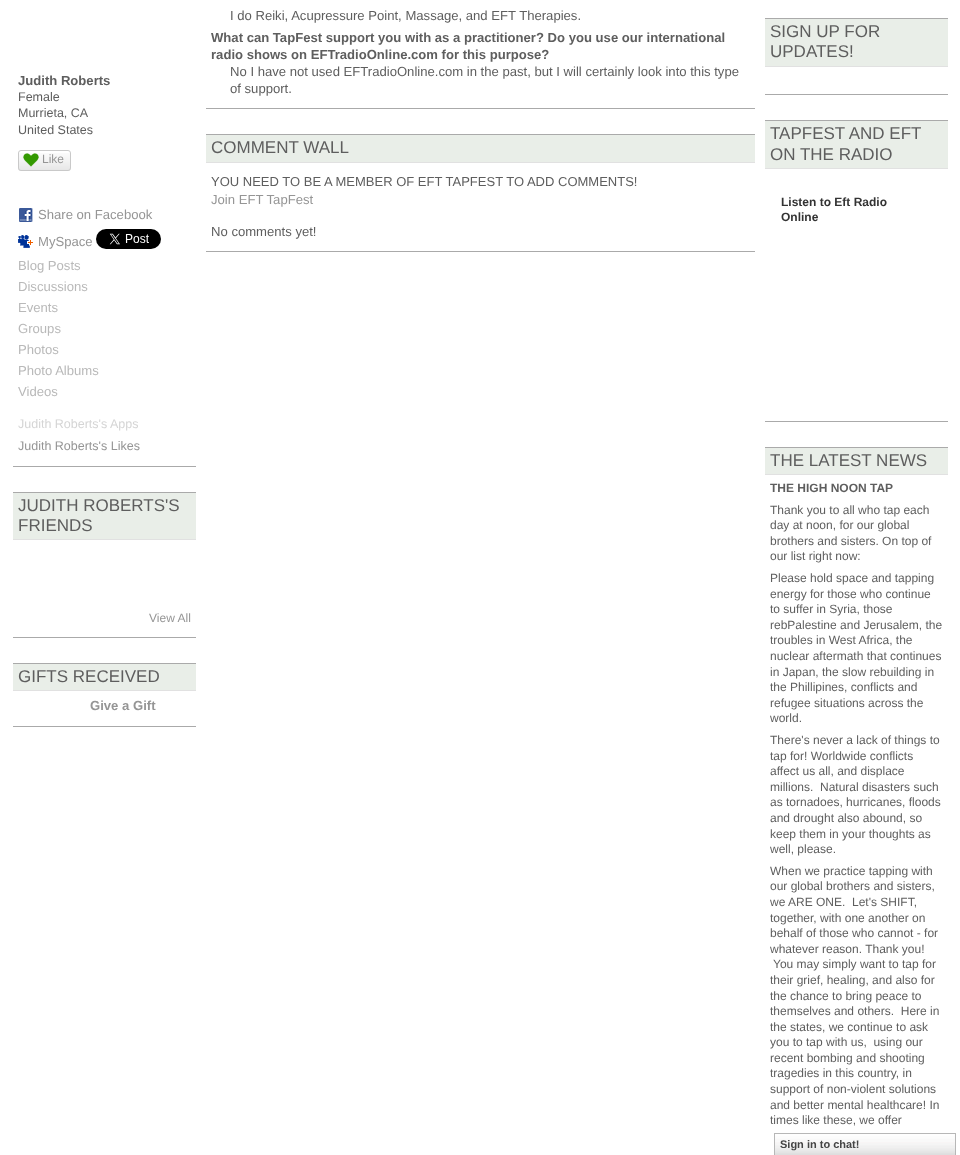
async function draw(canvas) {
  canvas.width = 960;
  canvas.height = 1155;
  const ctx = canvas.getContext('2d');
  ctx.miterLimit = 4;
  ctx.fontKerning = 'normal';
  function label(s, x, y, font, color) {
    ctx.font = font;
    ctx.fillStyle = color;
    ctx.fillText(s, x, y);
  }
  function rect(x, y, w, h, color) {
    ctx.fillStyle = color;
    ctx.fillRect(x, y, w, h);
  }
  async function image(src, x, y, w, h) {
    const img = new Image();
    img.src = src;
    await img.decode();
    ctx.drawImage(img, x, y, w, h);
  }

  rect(0, 0, 960, 1155, '#fff');
  rect(13, 466, 183, 1, '#aaa');
  label('Judith Roberts', 18, 85, 'bold 13.1px Liberation Sans', '#5e5e5e');
  label('Female', 18, 101, '12.5px Liberation Sans', '#5e5e5e');
  label('Murrieta, CA', 18, 117, '12.5px Liberation Sans', '#5e5e5e');
  label('United States', 18, 134, '12.5px Liberation Sans', '#5e5e5e');
  await image('assets/img1.png', 18, 153, 53, 18);
  ctx.beginPath();
  ctx.roundRect(18.5, 150.5, 52, 20, 2.5);
  ctx.strokeStyle = '#c9c9c9';
  ctx.stroke();
  await image('assets/img2.png', 23, 153, 16, 14);
  label('Like', 42, 163, '12px Liberation Sans', '#959595');
  await image('assets/img3.png', 19, 208, 14, 14);
  label('Share on Facebook', 38, 219, '13.1px Liberation Sans', '#959595');
  await image('assets/img4.png', 18, 235, 15, 13);
  label('MySpace', 38, 246, '13.1px Liberation Sans', '#959595');
  await image('assets/img5.png', 96, 229, 65, 20);
  label('Blog Posts', 18, 270, '13.1px Liberation Sans', '#b9b9b9');
  label('Discussions', 18, 291, '13.1px Liberation Sans', '#b9b9b9');
  label('Events', 18, 312, '13.1px Liberation Sans', '#b9b9b9');
  label('Groups', 18, 333, '13.1px Liberation Sans', '#b9b9b9');
  label('Photos', 18, 354, '13.1px Liberation Sans', '#b9b9b9');
  label('Photo Albums', 18, 375, '13.1px Liberation Sans', '#b9b9b9');
  label('Videos', 18, 396, '13.1px Liberation Sans', '#b9b9b9');
  label('Judith Roberts\'s Apps', 18, 428, '12.5px Liberation Sans', '#d5d5d5');
  label('Judith Roberts\'s Likes', 18, 450, '12.5px Liberation Sans', '#959595');
  rect(13, 492, 183, 1, '#aaa');
  rect(13, 637, 183, 1, '#aaa');
  rect(13, 493, 183, 46, '#e9eee8');
  rect(13, 539, 183, 1, '#e1e1e1');
  label('JUDITH ROBERTS\'S', 18, 511, '17px Liberation Sans', '#5e5e5e');
  label('FRIENDS', 18, 531, '17px Liberation Sans', '#5e5e5e');
  label('View All', 149, 622, '12px Liberation Sans', '#959595');
  rect(13, 663, 183, 1, '#aaa');
  rect(13, 726, 183, 1, '#aaa');
  rect(13, 664, 183, 26, '#e9eee8');
  rect(13, 690, 183, 1, '#e1e1e1');
  label('GIFTS RECEIVED', 18, 682, '17px Liberation Sans', '#5e5e5e');
  label('Give a Gift', 90, 710, 'bold 13.1px Liberation Sans', '#959595');
  rect(206, 108, 549, 1, '#aaa');
  label('I do Reiki, Acupressure Point, Massage, and EFT Therapies.', 230, 20, '13.1px Liberation Sans', '#5e5e5e');
  label('What can TapFest support you with as a practitioner? Do you use our international', 211, 42, 'bold 13.1px Liberation Sans', '#5e5e5e');
  label('radio shows on EFTradioOnline.com for this purpose?', 211, 59, 'bold 13.1px Liberation Sans', '#5e5e5e');
  label('No I have not used EFTradioOnline.com in the past, but I will certainly look into this type', 230, 76, '13.1px Liberation Sans', '#5e5e5e');
  label('of support.', 230, 93, '13.1px Liberation Sans', '#5e5e5e');
  rect(206, 134, 549, 1, '#aaa');
  rect(206, 251, 549, 1, '#aaa');
  rect(206, 135, 549, 27, '#e9eee8');
  rect(206, 162, 549, 1, '#e1e1e1');
  label('COMMENT WALL', 211, 153, '17px Liberation Sans', '#5e5e5e');
  label('YOU NEED TO BE A MEMBER OF EFT TAPFEST TO ADD COMMENTS!', 211, 186, '13px Liberation Sans', '#5e5e5e');
  label('Join EFT TapFest', 211, 204, '13.1px Liberation Sans', '#959595');
  label('No comments yet!', 211, 236, '13.1px Liberation Sans', '#5e5e5e');
  rect(765, 18, 183, 1, '#aaa');
  rect(765, 94, 183, 1, '#aaa');
  rect(765, 19, 183, 47, '#e9eee8');
  rect(765, 66, 183, 1, '#e1e1e1');
  label('SIGN UP FOR', 770, 37, '17px Liberation Sans', '#5e5e5e');
  label('UPDATES!', 770, 57, '17px Liberation Sans', '#5e5e5e');
  rect(765, 120, 183, 1, '#aaa');
  rect(765, 421, 183, 1, '#aaa');
  rect(765, 121, 183, 47, '#e9eee8');
  rect(765, 168, 183, 1, '#e1e1e1');
  label('TAPFEST AND EFT', 770, 139, '17px Liberation Sans', '#5e5e5e');
  label('ON THE RADIO', 770, 160, '17px Liberation Sans', '#5e5e5e');
  label('Listen to Eft Radio', 781, 206, 'bold 12px Liberation Sans', '#333');
  label('Online', 781, 221, 'bold 12px Liberation Sans', '#333');
  rect(765, 447, 183, 1, '#aaa');
  rect(765, 448, 183, 26, '#e9eee8');
  rect(765, 474, 183, 1, '#e1e1e1');
  label('THE LATEST NEWS', 770, 466, '17px Liberation Sans', '#5e5e5e');
  label('THE HIGH NOON TAP', 770, 492, 'bold 12px Liberation Sans', '#5e5e5e');
  label('Thank you to all who tap each', 770, 514, '12px Liberation Sans', '#5e5e5e');
  label('day at noon, for our global', 770, 529, '12px Liberation Sans', '#5e5e5e');
  label('brothers and sisters. On top of', 770, 545, '12px Liberation Sans', '#5e5e5e');
  label('our list right now:', 770, 560, '12px Liberation Sans', '#5e5e5e');
  label('Please hold space and tapping', 770, 582, '12px Liberation Sans', '#5e5e5e');
  label('energy for those who continue', 770, 598, '12px Liberation Sans', '#5e5e5e');
  label('to suffer in Syria, those', 770, 613, '12px Liberation Sans', '#5e5e5e');
  label('rebPalestine and Jerusalem, the', 770, 629, '12px Liberation Sans', '#5e5e5e');
  label('troubles in West Africa, the', 770, 644, '12px Liberation Sans', '#5e5e5e');
  label('nuclear aftermath that continues', 770, 660, '12px Liberation Sans', '#5e5e5e');
  label('in Japan, the slow rebuilding in', 770, 676, '12px Liberation Sans', '#5e5e5e');
  label('the Phillipines, conflicts and', 770, 691, '12px Liberation Sans', '#5e5e5e');
  label('refugee situations across the', 770, 707, '12px Liberation Sans', '#5e5e5e');
  label('world.', 770, 722, '12px Liberation Sans', '#5e5e5e');
  label('There\'s never a lack of things to', 770, 744, '12px Liberation Sans', '#5e5e5e');
  label('tap for! Worldwide conflicts', 770, 760, '12px Liberation Sans', '#5e5e5e');
  label('affect us all, and displace', 770, 775, '12px Liberation Sans', '#5e5e5e');
  label('millions.  Natural disasters such', 770, 791, '12px Liberation Sans', '#5e5e5e');
  label('as tornadoes, hurricanes, floods', 770, 806, '12px Liberation Sans', '#5e5e5e');
  label('and drought also abound, so', 770, 822, '12px Liberation Sans', '#5e5e5e');
  label('keep them in your thoughts as', 770, 838, '12px Liberation Sans', '#5e5e5e');
  label('well, please.', 770, 853, '12px Liberation Sans', '#5e5e5e');
  label('When we practice tapping with', 770, 875, '12px Liberation Sans', '#5e5e5e');
  label('our global brothers and sisters,', 770, 890, '12px Liberation Sans', '#5e5e5e');
  label('we ARE ONE.  Let\'s SHIFT,', 770, 906, '12px Liberation Sans', '#5e5e5e');
  label('together, with one another on', 770, 922, '12px Liberation Sans', '#5e5e5e');
  label('behalf of those who cannot - for', 770, 937, '12px Liberation Sans', '#5e5e5e');
  label('whatever reason. Thank you!', 770, 953, '12px Liberation Sans', '#5e5e5e');
  label('You may simply want to tap for', 773, 968, '12px Liberation Sans', '#5e5e5e');
  label('their grief, healing, and also for', 770, 984, '12px Liberation Sans', '#5e5e5e');
  label('the chance to bring peace to', 770, 1000, '12px Liberation Sans', '#5e5e5e');
  label('themselves and others.  Here in', 770, 1015, '12px Liberation Sans', '#5e5e5e');
  label('the states, we continue to ask', 770, 1031, '12px Liberation Sans', '#5e5e5e');
  label('you to tap with us,  using our', 770, 1046, '12px Liberation Sans', '#5e5e5e');
  label('recent bombing and shooting', 770, 1062, '12px Liberation Sans', '#5e5e5e');
  label('tragedies in this country, in', 770, 1077, '12px Liberation Sans', '#5e5e5e');
  label('support of non-violent solutions', 770, 1093, '12px Liberation Sans', '#5e5e5e');
  label('and better mental healthcare! In', 770, 1109, '12px Liberation Sans', '#5e5e5e');
  label('times like these, we offer', 770, 1124, '12px Liberation Sans', '#5e5e5e');
  await image('assets/img6.png', 775, 1134, 180, 21);
  ctx.strokeStyle = '#b7b7b7';
  ctx.strokeRect(774.5, 1133.5, 181, 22);
  label('Sign in to chat!', 780, 1148, 'bold 11px Liberation Sans', '#454545');
}

draw(document.querySelector('canvas'));
